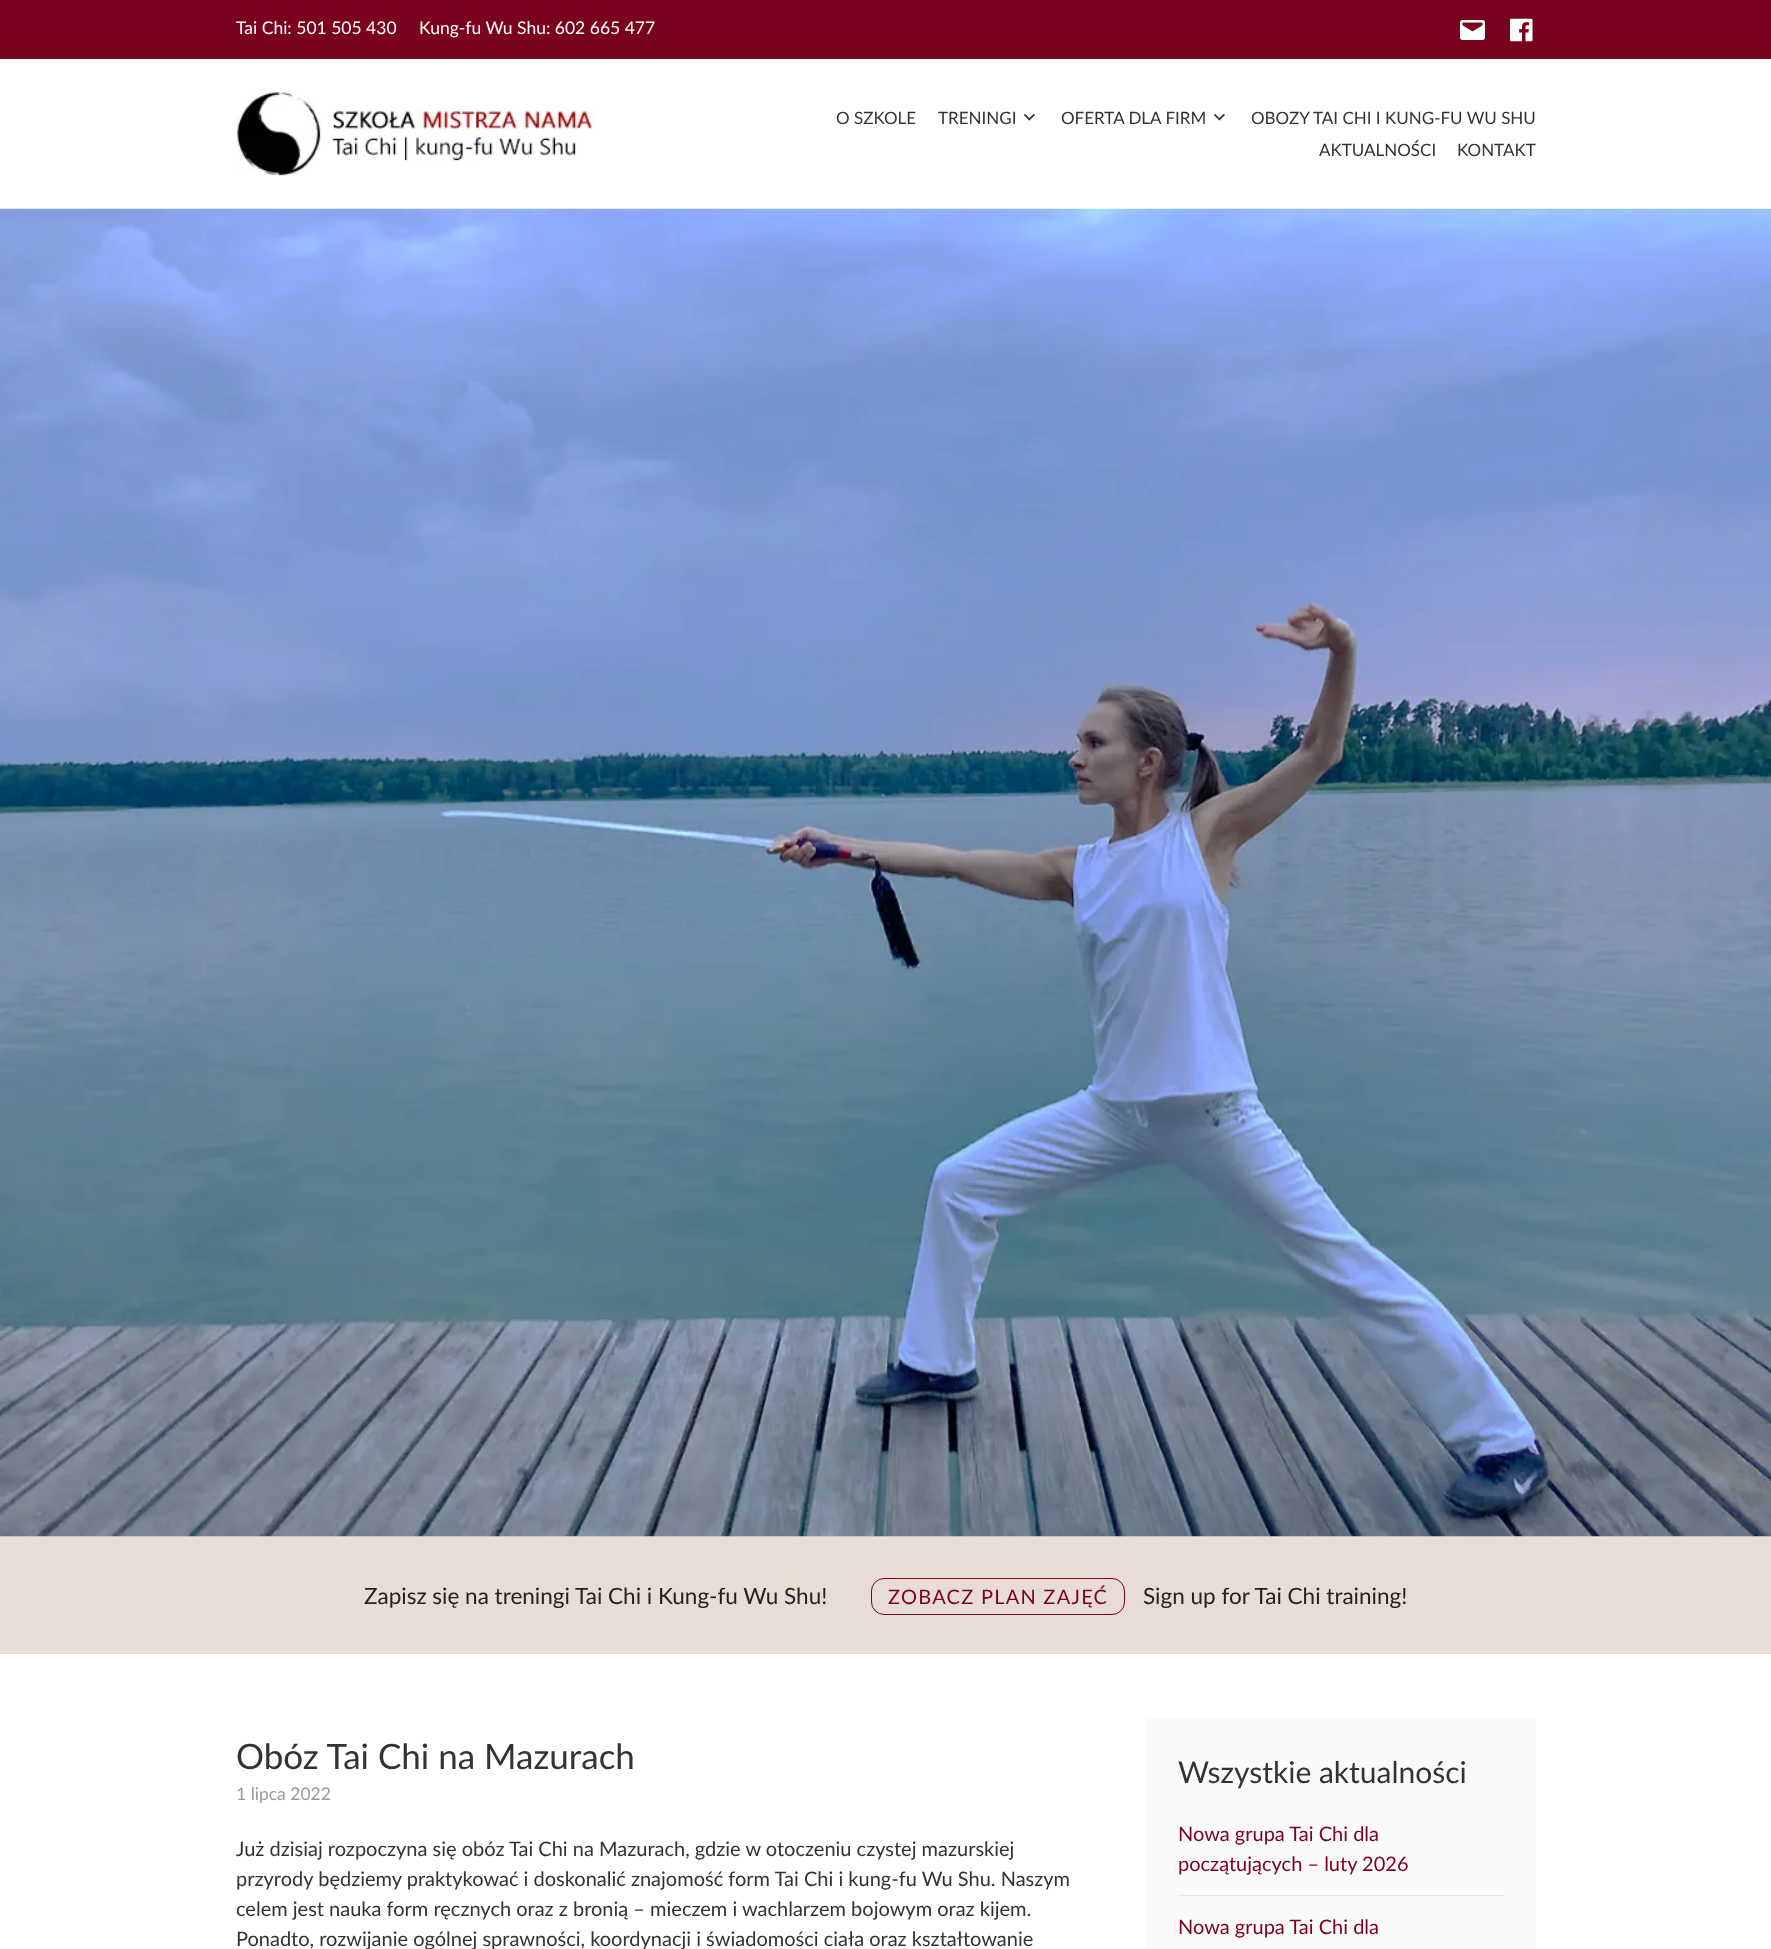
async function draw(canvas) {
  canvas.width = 1771;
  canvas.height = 1949;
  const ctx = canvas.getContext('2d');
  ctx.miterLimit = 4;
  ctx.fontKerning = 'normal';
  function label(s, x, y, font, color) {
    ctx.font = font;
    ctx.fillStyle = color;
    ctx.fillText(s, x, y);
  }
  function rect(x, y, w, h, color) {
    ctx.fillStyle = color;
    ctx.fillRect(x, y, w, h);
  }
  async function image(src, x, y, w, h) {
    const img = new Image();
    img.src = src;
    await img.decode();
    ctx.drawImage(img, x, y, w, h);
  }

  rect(0, 0, 1771, 1949, '#fff');
  rect(0, 0, 1771, 59, '#7a021c');
  label('Tai Chi: 501 505 430', 236, 34, '17.5px Lato', '#fff');
  label('Kung-fu Wu Shu: 602 665 477', 419, 34, '17.5px Lato', '#fff');
  await image('assets/img1.png', 1460, 20, 25, 20);
  await image('assets/img2.png', 1510, 18, 23, 24);
  await image('assets/img3.png', 236, 90, 361, 86);
  label('O SZKOLE', 836, 124, '17px Lato', '#333');
  label('TRENINGI', 938, 124, '17px Lato', '#333');
  await image('assets/img4.png', 1023, 113, 12, 8);
  label('OFERTA DLA FIRM', 1061, 124, '17px Lato', '#333');
  await image('assets/img4.png', 1213, 113, 12, 8);
  label('OBOZY TAI CHI I KUNG-FU WU SHU', 1251, 124, '17px Lato', '#333');
  label('AKTUALNOŚCI', 1319, 156, '17px Lato', '#333');
  label('KONTAKT', 1457, 156, '17px Lato', '#333');
  rect(0, 1536, 1771, 118, '#e7ddd3');
  await image('assets/img5.png', 0, 208, 1771, 1329);
  label('Zapisz się na treningi Tai Chi i Kung-fu Wu Shu!', 364, 1604, '22.5px Lato', '#222');
  ctx.beginPath();
  ctx.roundRect(871.5, 1578.5, 253, 36, 12.5);
  ctx.strokeStyle = '#7a021c';
  ctx.stroke();
  ctx.letterSpacing = '1.25px';
  label('ZOBACZ PLAN ZAJĘĆ', 888, 1604, '20px Lato', '#7a021c');
  ctx.letterSpacing = '0px';
  label('Sign up for Tai Chi training!', 1143, 1604, '22.5px Lato', '#222');
  label('Obóz Tai Chi na Mazurach', 236, 1769, '35px Lato', '#333');
  label('1 lipca 2022', 236, 1800, '17.5px Lato', '#999');
  label('Już dzisiaj rozpoczyna się obóz Tai Chi na Mazurach, gdzie w otoczeniu czystej mazurskiej', 236, 1856, '20px Lato', '#333');
  label('przyrody będziemy praktykować i doskonalić znajomość form Tai Chi i kung-fu Wu Shu. Naszym', 236, 1886, '20px Lato', '#333');
  label('celem jest nauka form ręcznych oraz z bronią – mieczem i wachlarzem bojowym oraz kijem.', 236, 1916, '20px Lato', '#333');
  label('Ponadto, rozwijanie ogólnej sprawności, koordynacji i świadomości ciała oraz kształtowanie', 236, 1946, '20px Lato', '#333');
  rect(1146, 1718, 390, 231, '#fafafa');
  label('Wszystkie aktualności', 1178, 1783, '30px Lato', '#333');
  label('Nowa grupa Tai Chi dla', 1178, 1841, '20px Lato', '#7a021c');
  label('początujących – luty 2026', 1178, 1871, '20px Lato', '#7a021c');
  rect(1178, 1895, 326, 1, '#e7e7e7');
  label('Nowa grupa Tai Chi dla', 1178, 1934, '20px Lato', '#7a021c');
}

draw(document.querySelector('canvas'));
